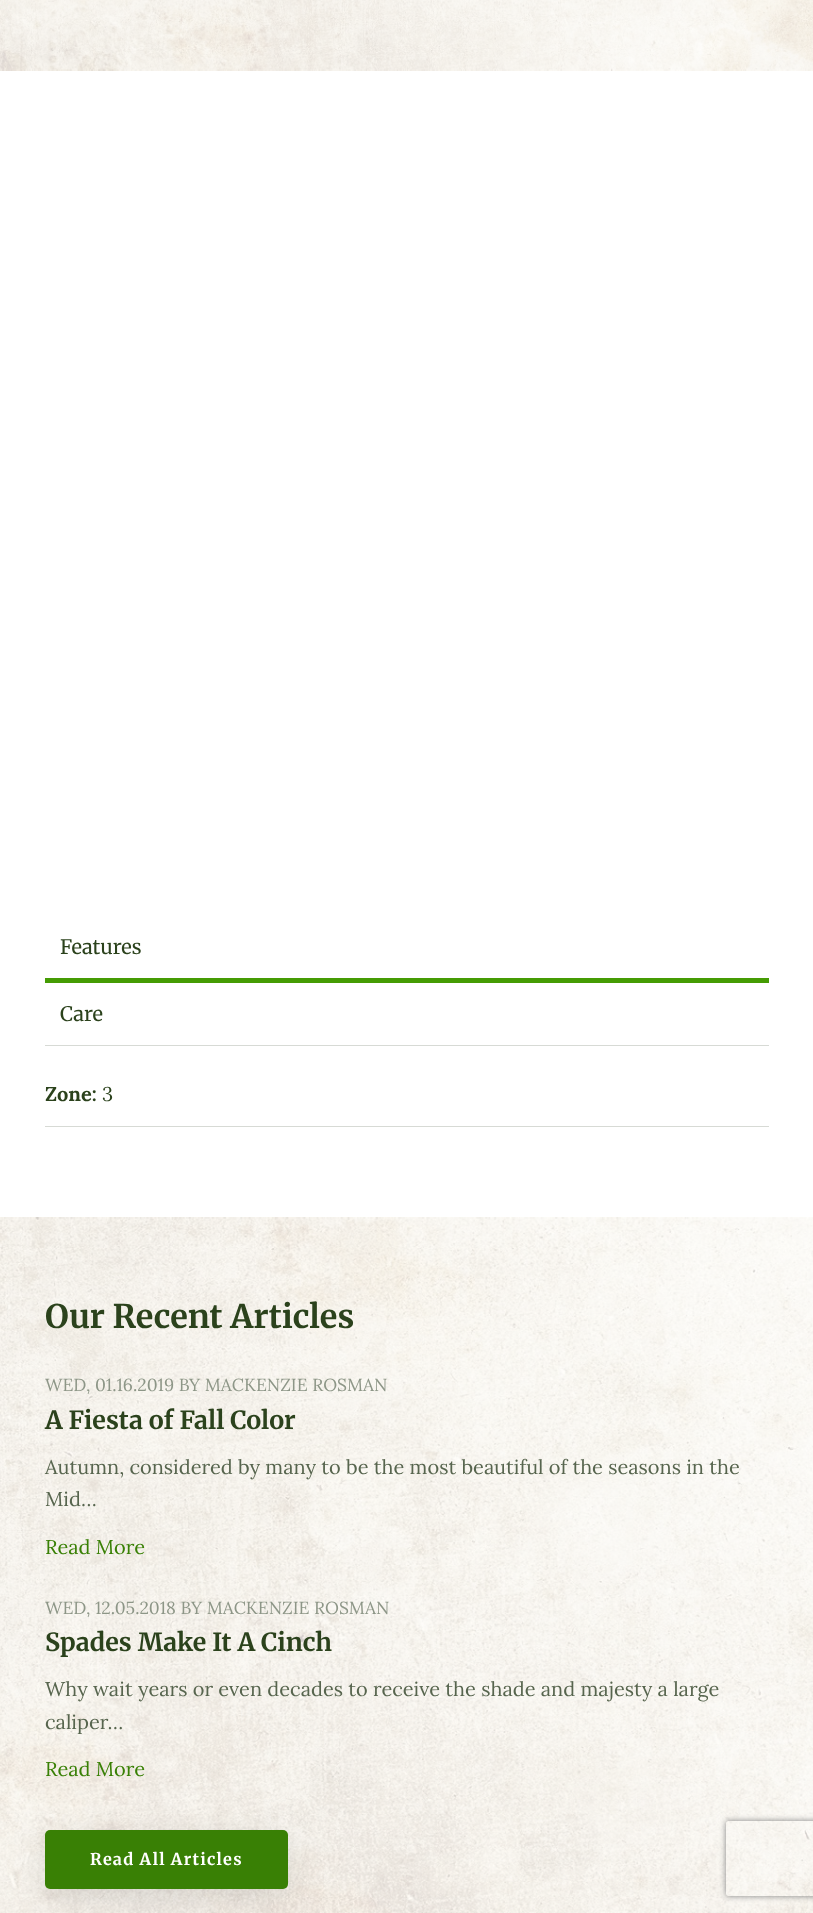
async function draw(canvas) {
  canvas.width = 813;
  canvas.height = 1913;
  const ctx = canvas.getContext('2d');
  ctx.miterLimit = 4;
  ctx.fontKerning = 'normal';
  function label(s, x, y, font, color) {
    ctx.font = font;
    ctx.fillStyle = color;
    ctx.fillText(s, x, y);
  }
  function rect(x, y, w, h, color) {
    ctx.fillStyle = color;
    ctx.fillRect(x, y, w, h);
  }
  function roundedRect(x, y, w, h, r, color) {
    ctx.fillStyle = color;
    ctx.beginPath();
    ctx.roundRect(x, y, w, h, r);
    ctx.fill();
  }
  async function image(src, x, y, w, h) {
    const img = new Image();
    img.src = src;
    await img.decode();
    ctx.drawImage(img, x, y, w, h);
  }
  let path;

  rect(0, 0, 813, 1913, '#fff');
  await image('assets/img1.png', 0, 0, 813, 71);
  rect(45, 978, 724, 5, '#459c04');
  label('Features', 60, 954, '20px Merriweather', '#2b421c');
  rect(45, 1045, 724, 1, '#d7dad5');
  label('Care', 60, 1021, '20px Merriweather', '#2b421c');
  rect(45, 1126, 724, 1, '#d7dad5');
  label('Zone:', 45, 1101, 'bold 20px Lora', '#2b421c');
  label('3', 102, 1101, '20px Lora', '#2b421c');
  await image('assets/img2.png', 0, 1217, 813, 696);
  label('Our Recent Articles', 45, 1328, 'bold 32.5px Merriweather', '#2b421c');
  label('WED, 01.16.2019 BY MACKENZIE ROSMAN', 45, 1391, '17.5px Lora', '#8d9687');
  label('A Fiesta of Fall Color', 45, 1429, 'bold 25px Merriweather', '#2b421c');
  label('Autumn, considered by many to be the most beautiful of the seasons in the', 45, 1474, '20px Lora', '#57654e');
  label('Mid…', 45, 1506, '20px Lora', '#57654e');
  label('Read More', 45, 1554, '20px Lora', '#398005');
  label('WED, 12.05.2018 BY MACKENZIE ROSMAN', 45, 1614, '17.5px Lora', '#8d9687');
  label('Spades Make It A Cinch', 45, 1651, 'bold 25px Merriweather', '#2b421c');
  label('Why wait years or even decades to receive the shade and majesty a large', 45, 1696, '20px Lora', '#57654e');
  label('caliper…', 45, 1729, '20px Lora', '#57654e');
  label('Read More', 45, 1776, '20px Lora', '#398005');
  ctx.fillStyle = '#0000001f';
  ctx.filter = 'blur(15px)';
  ctx.beginPath();
  ctx.roundRect(46, 1838, 243, 58, 5);
  ctx.fill();
  ctx.filter = 'none';
  roundedRect(45, 1830, 243, 59, 5, '#398005');
  ctx.letterSpacing = '1.25px';
  label('Read All Articles', 90, 1865, 'bold 16.25px Merriweather', '#fff');
  ctx.save();
  path = new Path2D('M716 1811H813V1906H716ZM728.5 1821H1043.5C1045 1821 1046 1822 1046 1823.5V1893.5C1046 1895 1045 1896 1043.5 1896H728.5C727 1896 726 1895 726 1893.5V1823.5C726 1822 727 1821 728.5 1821Z');
  ctx.clip(path, 'evenodd');
  ctx.fillStyle = '#808080';
  ctx.filter = 'blur(3px)';
  ctx.beginPath();
  ctx.roundRect(726, 1821, 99, 75, 2.5);
  ctx.fill();
  ctx.filter = 'none';
  ctx.restore();
}

draw(document.querySelector('canvas'));
